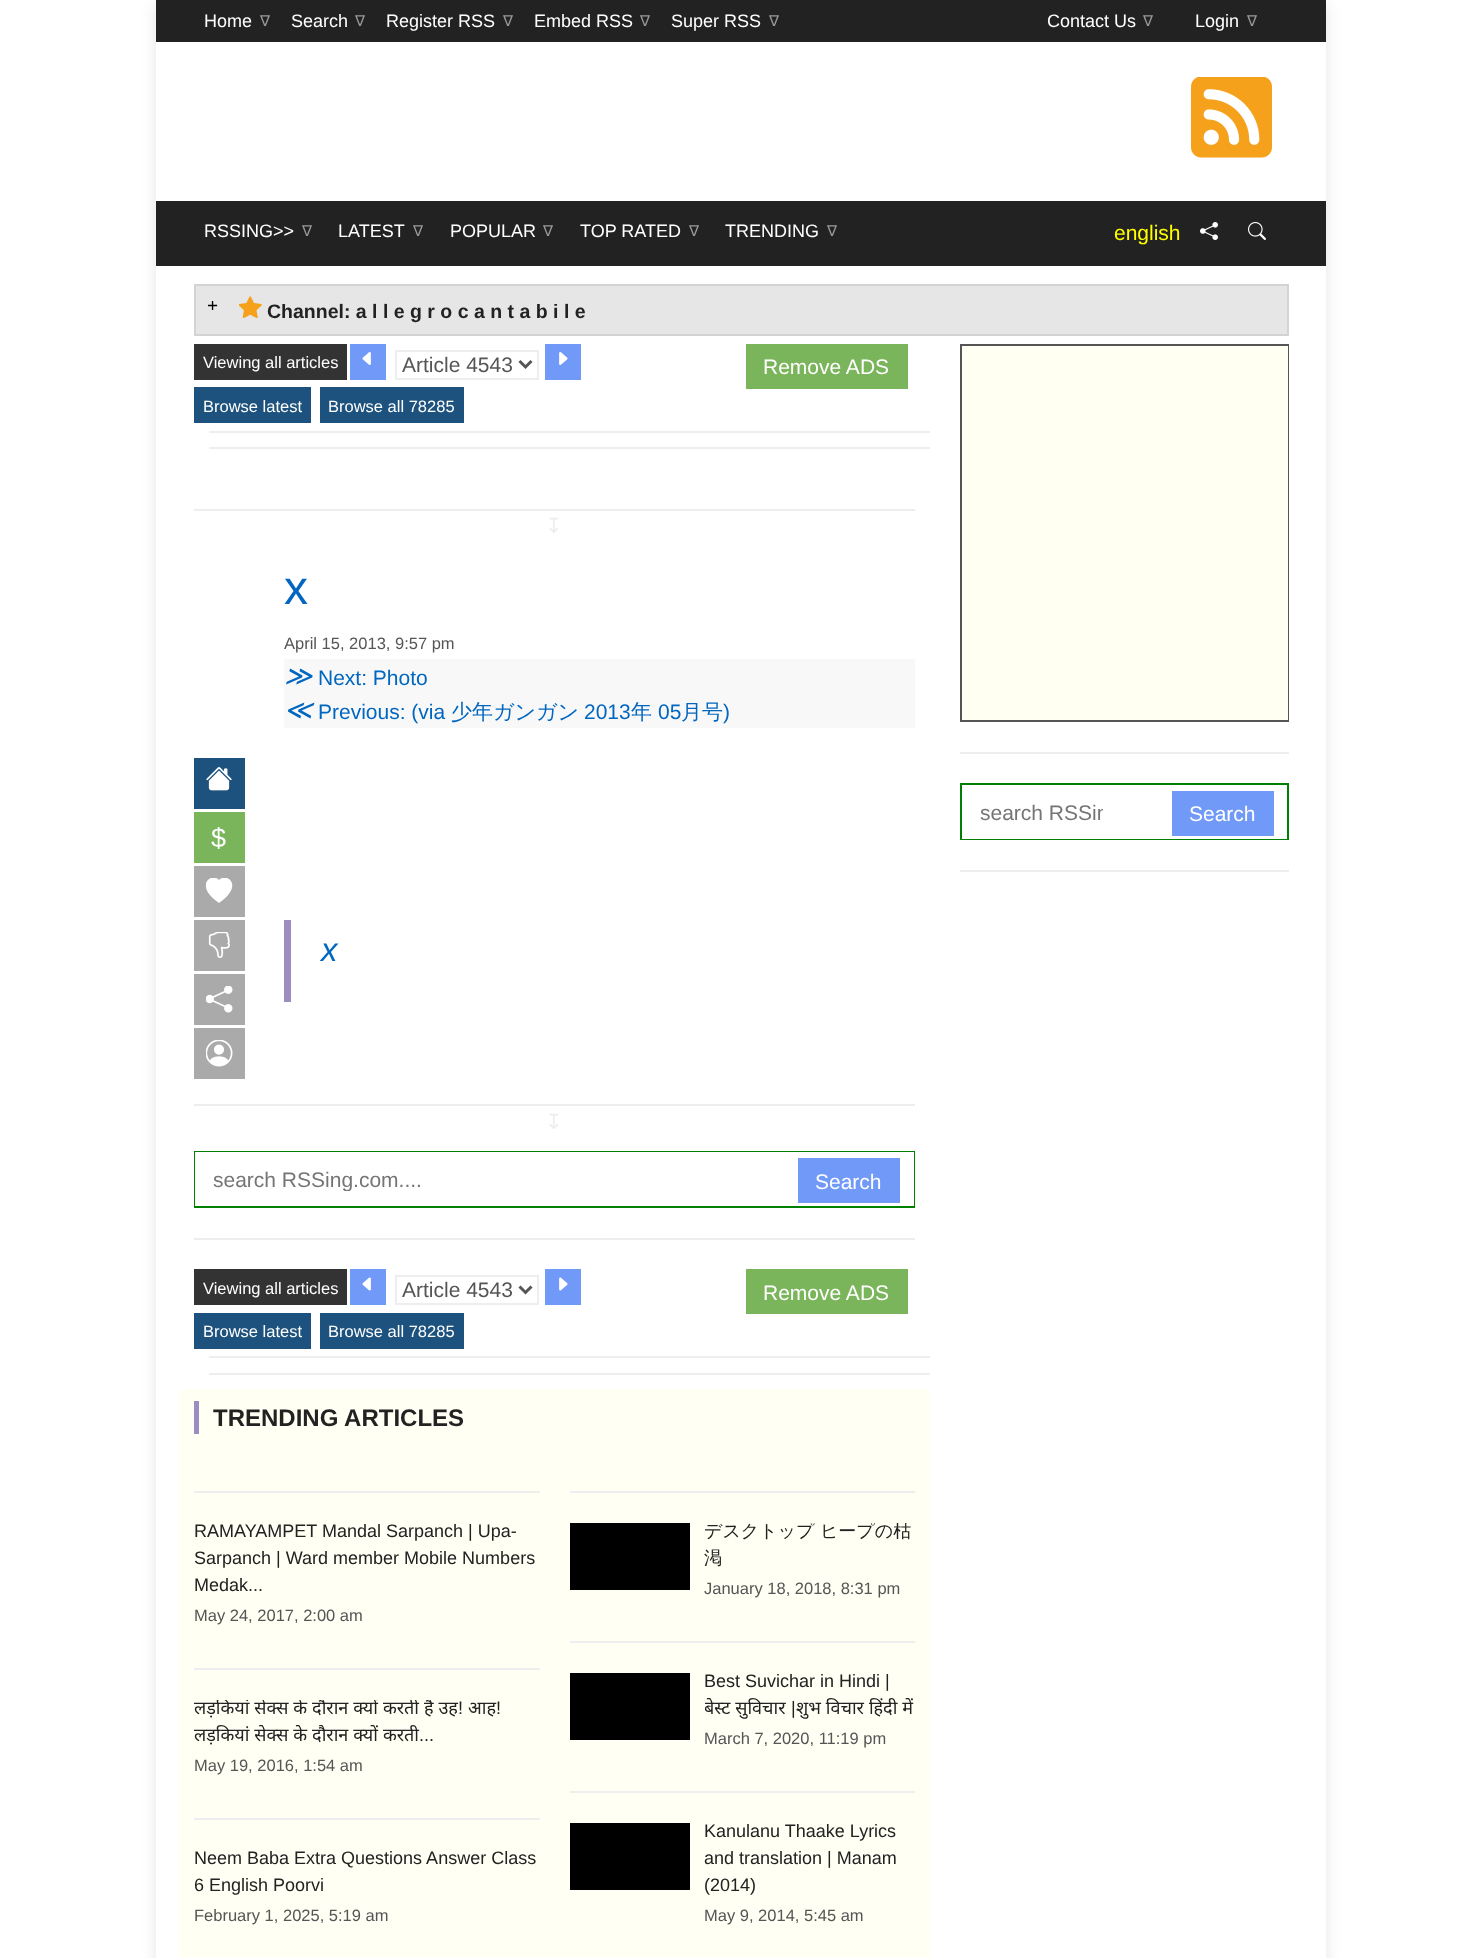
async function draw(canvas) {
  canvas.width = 1482;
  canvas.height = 1958;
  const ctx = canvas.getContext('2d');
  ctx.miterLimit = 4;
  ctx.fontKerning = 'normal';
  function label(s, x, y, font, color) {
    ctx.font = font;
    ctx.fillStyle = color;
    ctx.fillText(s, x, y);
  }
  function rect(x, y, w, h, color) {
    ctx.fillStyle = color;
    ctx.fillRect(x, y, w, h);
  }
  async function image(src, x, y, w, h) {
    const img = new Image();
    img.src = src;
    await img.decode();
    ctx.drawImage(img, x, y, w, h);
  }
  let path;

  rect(0, 0, 1482, 1958, '#fff');
  ctx.save();
  path = new Path2D('M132 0H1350V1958H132ZM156 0H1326V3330H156Z');
  ctx.clip(path, 'evenodd');
  ctx.fillStyle = '#0000001a';
  ctx.filter = 'blur(7.5px)';
  ctx.beginPath();
  ctx.rect(156, 5, 1170, 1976);
  ctx.fill();
  ctx.filter = 'none';
  ctx.restore();
  rect(156, 0, 1170, 42, '#222');
  label('Home', 204, 27, '18px Liberation Sans', '#fff');
  label('∇', 260, 26, '15px DejaVu Sans', '#999');
  label('Search', 291, 27, '18px Liberation Sans', '#fff');
  label('∇', 355, 26, '15px DejaVu Sans', '#999');
  label('Register RSS', 386, 27, '18px Liberation Sans', '#fff');
  label('∇', 503, 26, '15px DejaVu Sans', '#999');
  label('Embed RSS', 534, 27, '18px Liberation Sans', '#fff');
  label('∇', 640, 26, '15px DejaVu Sans', '#999');
  label('Super RSS', 671, 27, '18px Liberation Sans', '#fff');
  label('∇', 769, 26, '15px DejaVu Sans', '#999');
  label('Contact Us', 1047, 27, '18px Liberation Sans', '#fff');
  label('∇', 1143, 26, '15px DejaVu Sans', '#999');
  label('Login', 1195, 27, '18px Liberation Sans', '#fff');
  label('∇', 1247, 26, '15px DejaVu Sans', '#999');
  await image('assets/img1.png', 1191, 77, 81, 81);
  rect(156, 201, 1170, 65, '#222');
  label('RSSING>>', 204, 237, '18px Liberation Sans', '#fff');
  label('∇', 302, 236, '15px DejaVu Sans', '#999');
  label('LATEST', 338, 237, '18px Liberation Sans', '#fff');
  label('∇', 413, 236, '15px DejaVu Sans', '#999');
  label('POPULAR', 450, 237, '18px Liberation Sans', '#fff');
  label('∇', 543, 236, '15px DejaVu Sans', '#999');
  label('TOP RATED', 580, 237, '18px Liberation Sans', '#fff');
  label('∇', 689, 236, '15px DejaVu Sans', '#999');
  label('TRENDING', 725, 237, '18px Liberation Sans', '#fff');
  label('∇', 827, 236, '15px DejaVu Sans', '#999');
  label('english', 1114, 240, '21px Liberation Sans', '#ff0');
  await image('assets/img2.png', 1200, 222, 18, 18);
  await image('assets/img3.png', 1248, 222, 18, 18);
  ctx.fillStyle = '#e6e6e6';
  ctx.beginPath();
  ctx.rect(195, 285, 1093, 50);
  ctx.fill();
  ctx.strokeStyle = '#d3d3d3';
  ctx.lineWidth = 2;
  ctx.stroke();
  label('+', 207, 312, 'bold 19.5px Liberation Serif', '#000');
  await image('assets/img4.png', 239, 296, 23, 22);
  label('Channel: a l l e g r o c a n t a b i l e', 267, 318, 'bold 19.5px Liberation Sans', '#222');
  rect(194, 344, 153, 36, '#333');
  label('Viewing all articles', 203, 368, '16.5px Liberation Sans', '#fff');
  rect(350, 344, 36, 36, '#7199f7');
  await image('assets/img5.png', 362, 352, 9, 13);
  ctx.strokeStyle = '#eee';
  ctx.strokeRect(396, 351, 142, 28);
  path = new Path2D('M519.5 361L525.5 367L531.5 361');
  ctx.strokeStyle = '#555';
  ctx.lineWidth = 3;
  ctx.stroke(path);
  label('Article 4543', 402, 372, '21px Liberation Sans', '#555');
  rect(545, 344, 36, 36, '#7199f7');
  await image('assets/img6.png', 559, 352, 9, 13);
  rect(746, 344, 162, 45, '#7ab55c');
  label('Remove ADS', 763, 374, '21px Liberation Sans', '#fff');
  rect(194, 387, 117, 36, '#1c527d');
  label('Browse latest', 203, 412, '16.5px Liberation Sans', '#fff');
  rect(320, 387, 144, 36, '#1c527d');
  label('Browse all 78285', 328, 412, '16.5px Liberation Sans', '#fff');
  rect(209, 431, 721, 2, '#eee');
  rect(209, 447, 721, 2, '#eee');
  rect(194, 509, 721, 2, '#eee');
  label('↧', 545, 533, '21px DejaVu Sans', '#eee');
  label('x', 284, 604, '48px Liberation Sans', '#0066c0');
  label('April 15, 2013, 9:57 pm', 284, 649, '16.5px Liberation Sans', '#555');
  rect(284, 659, 631, 69, '#f8f8f8');
  label('≫', 284, 685, 'italic 27px DejaVu Sans', '#0066c0');
  label('Next: Photo', 318, 685, '21px Liberation Sans', '#0066c0');
  label('≪', 284, 719, 'italic 27px DejaVu Sans', '#0066c0');
  label('Previous: (via', 318, 719, '21px Liberation Sans', '#0066c0');
  label('少年ガンガン', 451, 719, '500 21px WenQuanYi Zen Hei', '#0066c0');
  label('2013', 584, 719, '21px Liberation Sans', '#0066c0');
  label('年', 631, 719, '500 21px WenQuanYi Zen Hei', '#0066c0');
  label('05', 658, 719, '21px Liberation Sans', '#0066c0');
  label('月号', 681, 719, '500 21px WenQuanYi Zen Hei', '#0066c0');
  label(')', 723, 719, '21px Liberation Sans', '#0066c0');
  rect(194, 758, 51, 51, '#1c527d');
  await image('assets/img7.png', 206, 767, 26, 24);
  rect(194, 812, 51, 51, '#7ab55c');
  label('$', 211, 847, '27px Liberation Sans', '#fff');
  rect(194, 866, 51, 51, '#aaa');
  ctx.save();
  ctx.beginPath();
  ctx.rect(206, 878, 27, 27);
  ctx.clip();
  ctx.fillStyle = '#fff';
  path = new Path2D('M219 880C226 872 245 885 219 903C193 885 212 872 219 880');
  ctx.fill(path, 'evenodd');
  ctx.restore();
  rect(194, 920, 51, 51, '#aaa');
  await image('assets/img8.png', 208, 932, 22, 26);
  rect(194, 974, 51, 51, '#aaa');
  await image('assets/img9.png', 206, 986, 27, 27);
  rect(194, 1028, 51, 51, '#aaa');
  await image('assets/img10.png', 206, 1040, 27, 27);
  rect(284, 920, 7, 82, '#9c8dc1');
  label('x', 321, 961, 'italic 33px Liberation Sans', '#0066c0');
  rect(194, 1104, 721, 2, '#eee');
  label('↧', 545, 1129, '21px DejaVu Sans', '#eee');
  ctx.strokeStyle = '#008000';
  ctx.lineWidth = 2;
  ctx.strokeRect(195, 1152, 719, 55);
  rect(195, 1152, 719, 54, '#fff');
  ctx.save();
  ctx.beginPath();
  ctx.rect(213, 1167, 516, 24);
  ctx.clip();
  label('search RSSing.com....', 213, 1187, '21px Liberation Sans', '#757575');
  ctx.restore();
  rect(798, 1158, 102, 45, '#7199f7');
  label('Search', 815, 1189, '21px Liberation Sans', '#fff');
  rect(194, 1238, 721, 2, '#eee');
  rect(194, 1269, 153, 36, '#333');
  label('Viewing all articles', 203, 1294, '16.5px Liberation Sans', '#fff');
  rect(350, 1269, 36, 36, '#7199f7');
  await image('assets/img11.png', 362, 1277, 9, 14);
  ctx.strokeStyle = '#eee';
  ctx.strokeRect(396, 1276, 142, 28);
  path = new Path2D('M519.5 1286.5L525.5 1292.5L531.5 1286.5');
  ctx.strokeStyle = '#555';
  ctx.lineWidth = 3;
  ctx.stroke(path);
  label('Article 4543', 402, 1297, '21px Liberation Sans', '#555');
  rect(545, 1269, 36, 36, '#7199f7');
  await image('assets/img12.png', 559, 1277, 9, 14);
  rect(746, 1269, 162, 45, '#7ab55c');
  label('Remove ADS', 763, 1300, '21px Liberation Sans', '#fff');
  rect(194, 1313, 117, 36, '#1c527d');
  label('Browse latest', 203, 1337, '16.5px Liberation Sans', '#fff');
  rect(320, 1313, 144, 36, '#1c527d');
  label('Browse all 78285', 328, 1337, '16.5px Liberation Sans', '#fff');
  rect(209, 1356, 721, 2, '#eee');
  rect(209, 1373, 721, 2, '#eee');
  rect(179, 1389, 751, 569, '#fffff3');
  rect(194, 1401, 5, 33, '#9c8dc1');
  label('TRENDING ARTICLES', 213, 1426, 'bold 24px Liberation Sans', '#222');
  rect(194, 1491, 346, 2, '#eee');
  label('RAMAYAMPET Mandal Sarpanch | Upa-', 194, 1537, '18px Liberation Sans', '#222');
  label('Sarpanch | Ward member Mobile Numbers', 194, 1564, '18px Liberation Sans', '#222');
  label('Medak...', 194, 1591, '18px Liberation Sans', '#222');
  label('May 24, 2017, 2:00 am', 194, 1621, '16.5px Liberation Sans', '#555');
  rect(194, 1668, 346, 2, '#eee');
  ctx.save();
  ctx.beginPath();
  ctx.rect(194, 1700, 346, 81);
  ctx.clip();
  ctx.wordSpacing = '0.25px';
  label('लड़कियां सेक्स के दौरान क्यों करती है उह', 194, 1714, '18px Noto Sans', '#222');
  ctx.restore();
  label('!', 458, 1714, '18px Liberation Sans', '#222');
  label('आह', 468, 1714, '18px Noto Sans', '#222');
  label('!', 496, 1714, '18px Liberation Sans', '#222');
  ctx.wordSpacing = '0.25px';
  label('लड़कियां सेक्स के दौरान क्यों करती', 194, 1741, '18px Noto Sans', '#222');
  ctx.wordSpacing = '0px';
  label('...', 419, 1741, '18px Liberation Sans', '#222');
  label('May 19, 2016, 1:54 am', 194, 1771, '16.5px Liberation Sans', '#555');
  rect(194, 1818, 346, 2, '#eee');
  label('Neem Baba Extra Questions Answer Class', 194, 1864, '18px Liberation Sans', '#222');
  label('6 English Poorvi', 194, 1891, '18px Liberation Sans', '#222');
  label('February 1, 2025, 5:19 am', 194, 1921, '16.5px Liberation Sans', '#555');
  rect(570, 1491, 345, 2, '#eee');
  rect(570, 1523, 120, 67, '#000');
  ctx.save();
  ctx.beginPath();
  ctx.rect(705, 1523, 210, 81);
  ctx.clip();
  label('デスクトップ ヒープの枯', 704, 1537, '500 18px WenQuanYi Zen Hei', '#222');
  ctx.restore();
  label('渇', 704, 1564, '500 18px WenQuanYi Zen Hei', '#222');
  label('January 18, 2018, 8:31 pm', 704, 1594, '16.5px Liberation Sans', '#555');
  rect(570, 1641, 345, 2, '#eee');
  rect(570, 1673, 120, 67, '#000');
  label('Best Suvichar in Hindi |', 704, 1687, '18px Liberation Sans', '#222');
  ctx.save();
  ctx.beginPath();
  ctx.rect(705, 1673, 210, 81);
  ctx.clip();
  ctx.wordSpacing = '0.25px';
  label('बेस्ट सुविचार', 704, 1714, '18px Noto Sans', '#222');
  ctx.restore();
  label('|', 791, 1714, '18px Liberation Sans', '#222');
  ctx.wordSpacing = '0.25px';
  label('शुभ विचार हिंदी में', 796, 1714, '18px Noto Sans', '#222');
  ctx.wordSpacing = '0px';
  label('March 7, 2020, 11:19 pm', 704, 1744, '16.5px Liberation Sans', '#555');
  rect(570, 1791, 345, 2, '#eee');
  rect(570, 1823, 120, 67, '#000');
  label('Kanulanu Thaake Lyrics', 704, 1837, '18px Liberation Sans', '#222');
  label('and translation | Manam', 704, 1864, '18px Liberation Sans', '#222');
  label('(2014)', 704, 1891, '18px Liberation Sans', '#222');
  label('May 9, 2014, 5:45 am', 704, 1921, '16.5px Liberation Sans', '#555');
  rect(962, 346, 326, 374, '#fffff2');
  ctx.save();
  ctx.beginPath();
  ctx.rect(960, 344, 329, 558);
  ctx.clip();
  ctx.lineWidth = 2;
  ctx.strokeRect(961, 345, 328, 376);
  ctx.restore();
  rect(960, 752, 329, 2, '#eee');
  ctx.strokeStyle = '#008000';
  ctx.lineWidth = 2;
  ctx.strokeRect(961, 784, 327, 55);
  rect(962, 838, 325, 1, '#fff');
  ctx.save();
  ctx.beginPath();
  ctx.rect(980, 800, 123, 24);
  ctx.clip();
  label('search RSSin', 980, 820, '21px Liberation Sans', '#757575');
  ctx.restore();
  rect(1172, 791, 102, 45, '#7199f7');
  label('Search', 1189, 821, '21px Liberation Sans', '#fff');
  rect(960, 870, 329, 2, '#eee');
}

draw(document.querySelector('canvas'));
